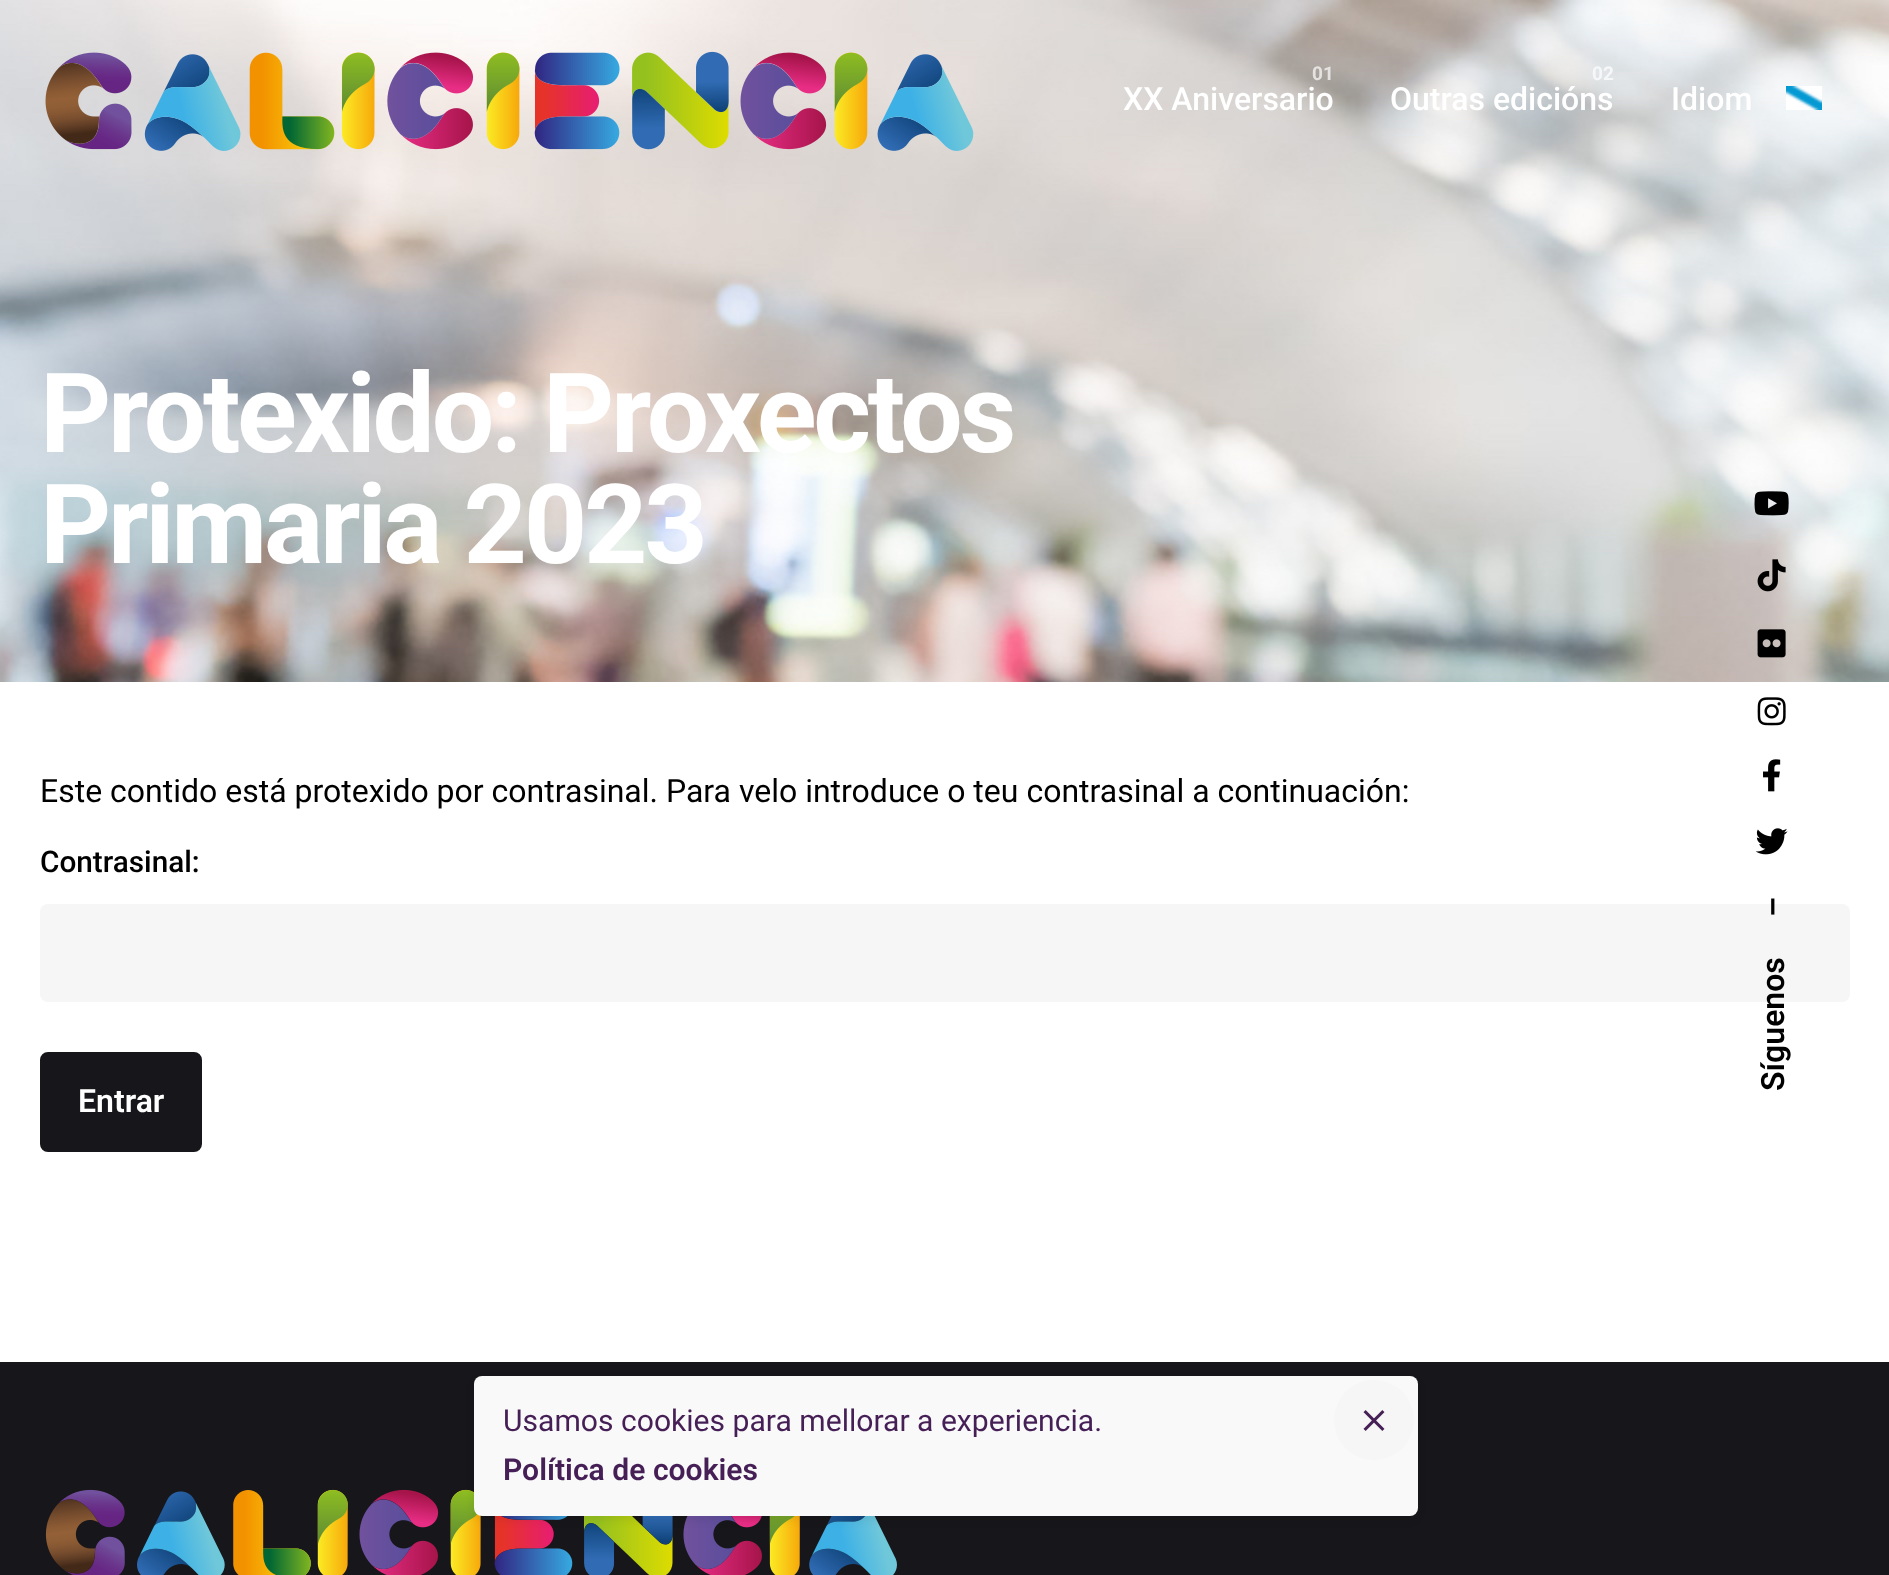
async function draw(canvas) {
  canvas.width = 1889;
  canvas.height = 1575;
  const ctx = canvas.getContext('2d');
  ctx.miterLimit = 4;
  ctx.fontKerning = 'normal';
  function label(s, x, y, font, color) {
    ctx.font = font;
    ctx.fillStyle = color;
    ctx.fillText(s, x, y);
  }
  function rect(x, y, w, h, color) {
    ctx.fillStyle = color;
    ctx.fillRect(x, y, w, h);
  }
  function roundedRect(x, y, w, h, r, color) {
    ctx.fillStyle = color;
    ctx.beginPath();
    ctx.roundRect(x, y, w, h, r);
    ctx.fill();
  }
  async function image(src, x, y, w, h) {
    const img = new Image();
    img.src = src;
    await img.decode();
    ctx.drawImage(img, x, y, w, h);
  }

  rect(0, 0, 1889, 1575, '#fff');
  await image('assets/img3.png', 0, 0, 1889, 682);
  await image('assets/img1.png', 45, 51, 929, 100);
  label('0', 1312, 80, 'bold 19px Roboto', '#e5e3e1');
  label('1', 1323, 80, 'bold 19px Roboto', '#e5e3e1');
  label('XX Aniversario', 1123, 110, '500 32px Roboto', '#fff');
  label('0', 1592, 80, 'bold 19px Roboto', '#f6f7f8');
  label('2', 1603, 80, 'bold 19px Roboto', '#f6f7f8');
  label('Outras edicións', 1390, 110, '500 32px Roboto', '#fff');
  label('Idiom', 1671, 110, '500 32px Roboto', '#fff');
  await image('assets/img2.png', 1786, 86, 36, 24);
  ctx.letterSpacing = '-3.3px';
  label('Protexido: Proxectos', 40, 452, 'bold 110.75px Roboto', '#fff');
  label('Primaria 2023', 40, 563, 'bold 110.75px Roboto', '#fff');
  ctx.letterSpacing = '0px';
  label('Este contido está protexido por contrasinal. Para velo introduce o teu contrasinal a continuación:', 40, 802, '32px Roboto', '#000');
  label('Contrasinal:', 40, 872, '500 29.75px Roboto', '#000');
  roundedRect(40, 904, 1810, 98, 8, '#f6f6f6');
  ctx.fillStyle = '#17161a';
  ctx.beginPath();
  ctx.roundRect(41, 1053, 160, 98, 7);
  ctx.fill();
  ctx.strokeStyle = '#17161a';
  ctx.lineWidth = 2;
  ctx.stroke();
  label('Entrar', 78, 1112, '600 32px Roboto', '#fff');
  rect(0, 1362, 1889, 213, '#17161a');
  await image('assets/img4.png', 45, 1489, 852, 86);
  await image('assets/img5.png', 1754, 491, 35, 25);
  await image('assets/img6.png', 1757, 559, 29, 33);
  await image('assets/img7.png', 1757, 629, 29, 29);
  await image('assets/img8.png', 1757, 697, 29, 29);
  await image('assets/img9.png', 1763, 759, 18, 33);
  await image('assets/img10.png', 1755, 828, 33, 27);
  ctx.fillStyle = '#000';
  ctx.save();
  ctx.translate(1784, 917);
  ctx.rotate(-90 * Math.PI / 180);
  ctx.fillText('–', 0, 0);
  ctx.restore();
  ctx.save();
  ctx.translate(1784, 1091);
  ctx.rotate(-90 * Math.PI / 180);
  ctx.fillText('Síguenos', 0, 0);
  ctx.restore();
  ctx.fillStyle = '#00000012';
  ctx.filter = 'blur(4px)';
  ctx.beginPath();
  ctx.roundRect(474, 1380, 944, 140, 8);
  ctx.fill();
  ctx.filter = 'none';
  roundedRect(474, 1376, 944, 140, 8, '#f9f9f9');
  label('Usamos cookies para mellorar a experiencia.', 503, 1431, '30.1px Roboto', '#451f55');
  label('Política de cookies', 503, 1480, '600 30.1px Roboto', '#451f55');
  ctx.fillStyle = '#f6f6f6';
  ctx.beginPath();
  ctx.arc(1374, 1420, 40, 0, 2 * Math.PI);
  ctx.fill();
  await image('assets/img11.png', 1363, 1410, 22, 21);
}

draw(document.querySelector('canvas'));
